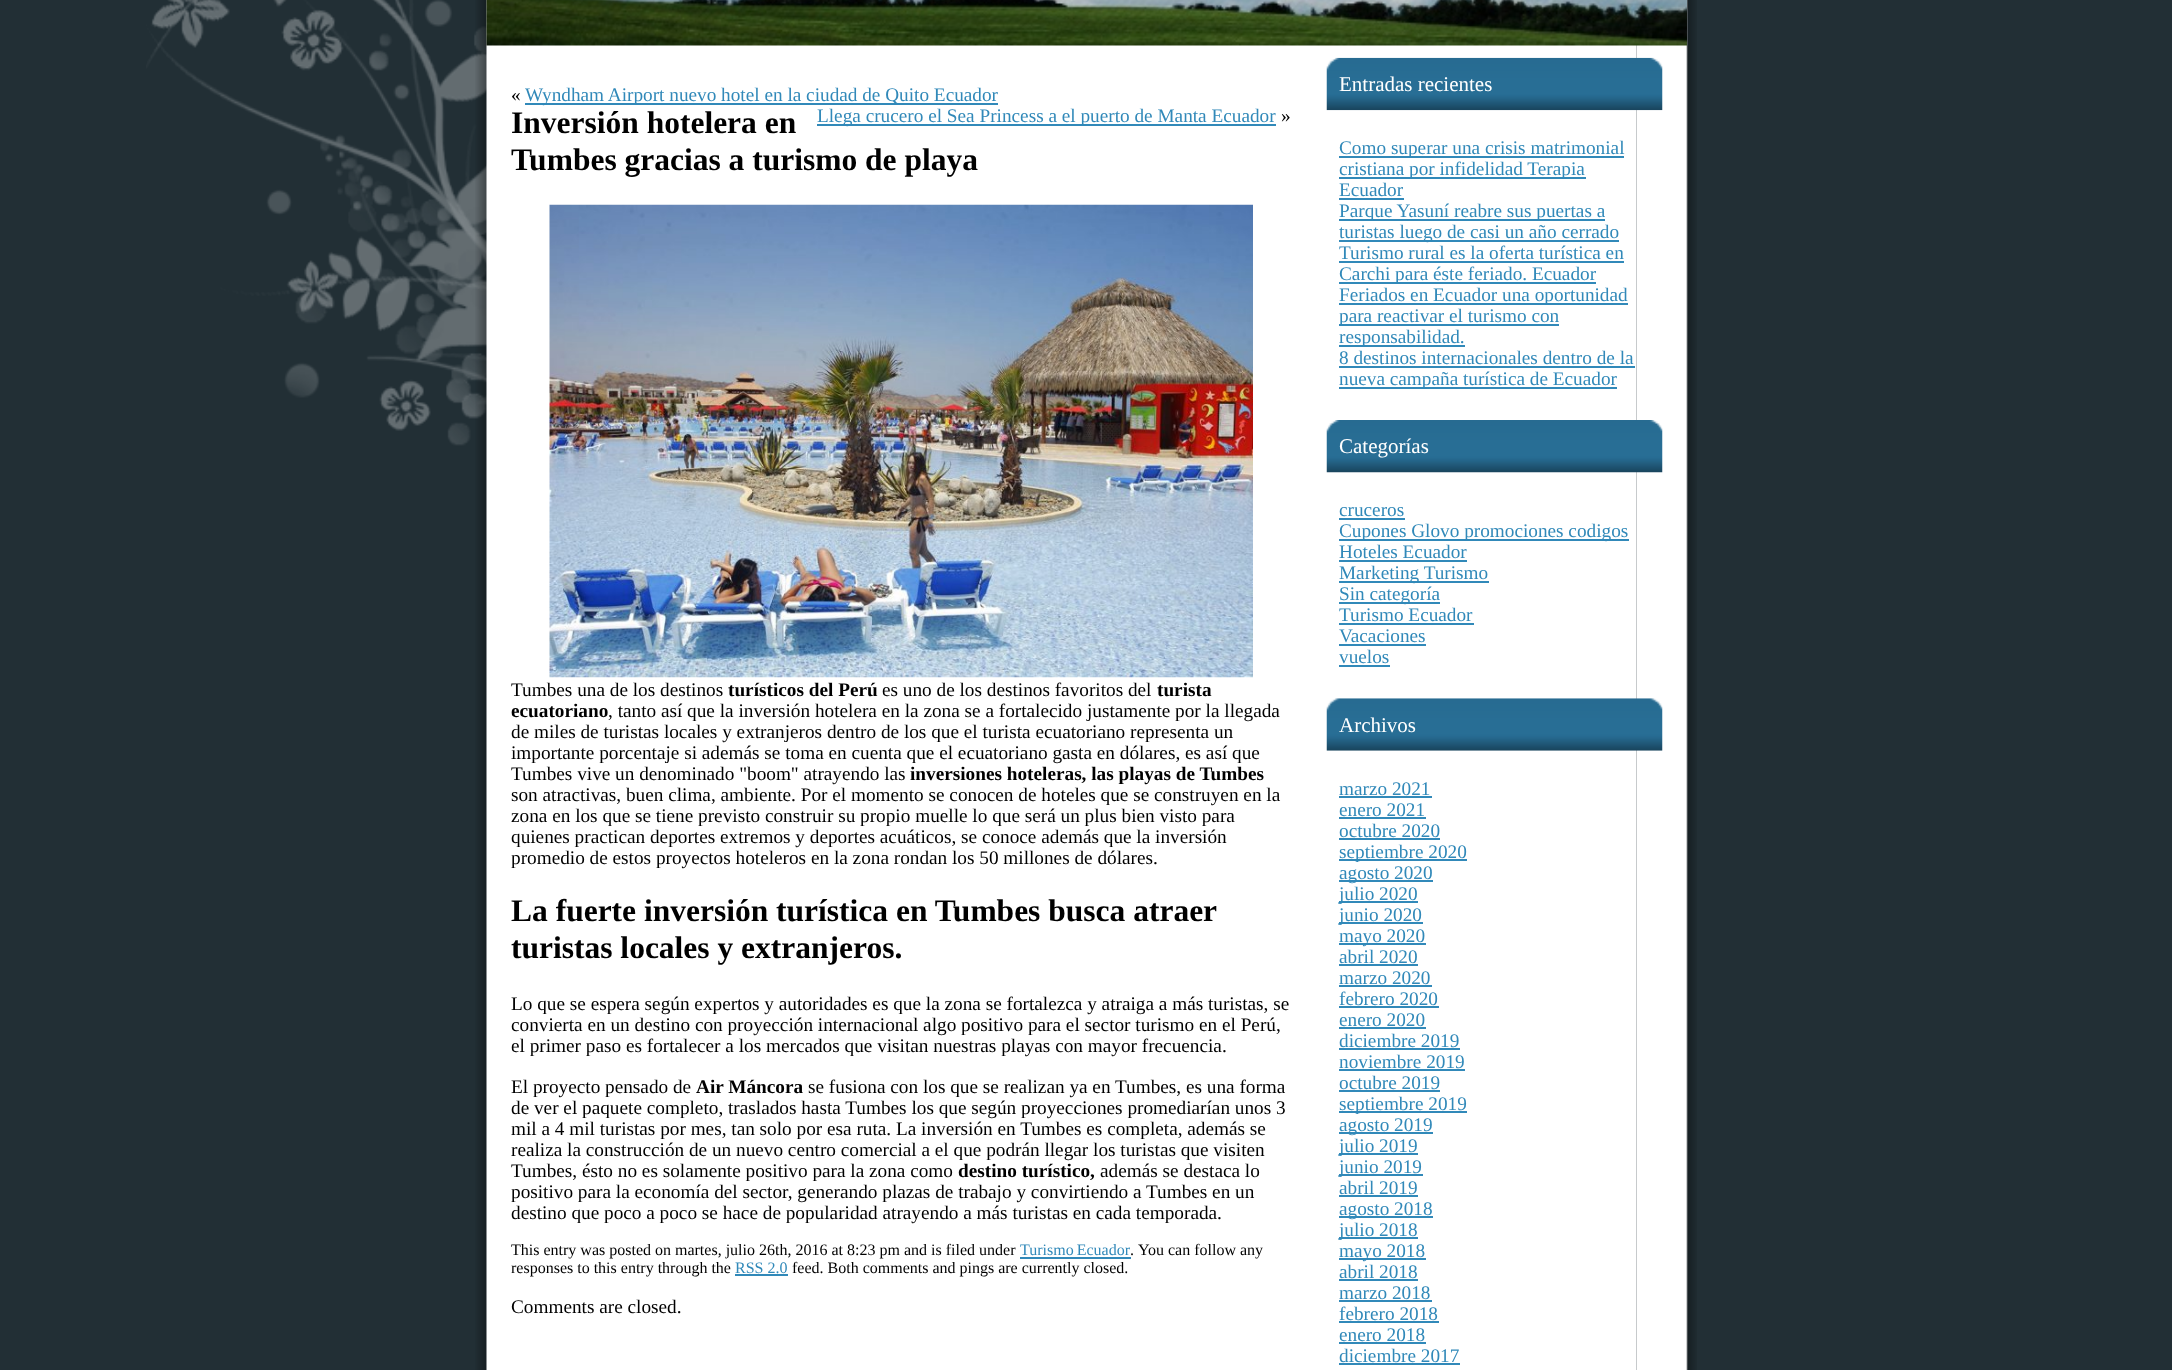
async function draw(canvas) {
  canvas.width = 2172;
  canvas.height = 1370;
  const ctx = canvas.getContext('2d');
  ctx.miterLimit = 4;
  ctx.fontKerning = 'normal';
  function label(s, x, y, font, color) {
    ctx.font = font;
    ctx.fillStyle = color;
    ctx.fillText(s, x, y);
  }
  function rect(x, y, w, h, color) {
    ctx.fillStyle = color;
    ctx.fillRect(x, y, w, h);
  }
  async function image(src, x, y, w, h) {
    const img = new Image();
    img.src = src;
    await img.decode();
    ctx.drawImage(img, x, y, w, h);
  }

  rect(0, 0, 2172, 1370, '#222f35');
  await image('assets/img1.png', 146, 0, 341, 446);
  await image('assets/img2.png', 475, 0, 62, 1370);
  rect(537, 45, 1099, 1325, '#fff');
  await image('assets/img3.png', 1636, 0, 61, 1370);
  await image('assets/img4.png', 486, 0, 1201, 46);
  label('«', 511, 101, '19.25px Liberation Serif', '#000');
  rect(525, 103, 473, 2, '#3189b9');
  label('Wyndham Airport nuevo hotel en la ciudad de Quito Ecuador', 525, 101, '19.25px Liberation Serif', '#3189b9');
  rect(817, 124, 459, 2, '#3189b9');
  label('Llega crucero el Sea Princess a el puerto de Manta Ecuador', 817, 122, '19.25px Liberation Serif', '#3189b9');
  label('»', 1281, 122, '19.25px Liberation Serif', '#000');
  label('Inversión hotelera en', 511, 133, 'bold 31.5px Liberation Serif', '#000');
  label('Tumbes gracias a turismo de playa', 511, 170, 'bold 31.5px Liberation Serif', '#000');
  await image('assets/img5.png', 549, 204, 704, 474);
  label('Tumbes una de los destinos', 511, 696, '19.25px Liberation Serif', '#000');
  label('turísticos del Perú', 728, 696, 'bold 19.25px Liberation Serif', '#000');
  label('es uno de los destinos favoritos del', 882, 696, '19.25px Liberation Serif', '#000');
  label('turista', 1157, 696, 'bold 19.25px Liberation Serif', '#000');
  label('ecuatoriano', 511, 717, 'bold 19.25px Liberation Serif', '#000');
  label(', tanto así que la inversión hotelera en la zona se a fortalecido justamente por la llegada', 608, 717, '19.25px Liberation Serif', '#000');
  label('de miles de turistas locales y extranjeros dentro de los que el turista ecuatoriano representa un', 511, 738, '19.25px Liberation Serif', '#000');
  label('importante porcentaje si además se toma en cuenta que el ecuatoriano gasta en dólares, es así que', 511, 759, '19.25px Liberation Serif', '#000');
  label('Tumbes vive un denominado "boom" atrayendo las', 511, 780, '19.25px Liberation Serif', '#000');
  label('inversiones hoteleras, las playas de Tumbes', 910, 780, 'bold 19.25px Liberation Serif', '#000');
  label('son atractivas, buen clima, ambiente. Por el momento se conocen de hoteles que se construyen en la', 511, 801, '19.25px Liberation Serif', '#000');
  label('zona en los que se tiene previsto construir su propio muelle lo que será un plus bien visto para', 511, 822, '19.25px Liberation Serif', '#000');
  label('quienes practican deportes extremos y deportes acuáticos, se conoce además que la inversión', 511, 843, '19.25px Liberation Serif', '#000');
  label('promedio de estos proyectos hoteleros en la zona rondan los 50 millones de dólares.', 511, 864, '19.25px Liberation Serif', '#000');
  label('La fuerte inversión turística en Tumbes busca atraer', 511, 921, 'bold 31.5px Liberation Serif', '#000');
  label('turistas locales y extranjeros.', 511, 958, 'bold 31.5px Liberation Serif', '#000');
  label('Lo que se espera según expertos y autoridades es que la zona se fortalezca y atraiga a más turistas, se', 511, 1010, '19.25px Liberation Serif', '#000');
  label('convierta en un destino con proyección internacional algo positivo para el sector turismo en el Perú,', 511, 1031, '19.25px Liberation Serif', '#000');
  label('el primer paso es fortalecer a los mercados que visitan nuestras playas con mayor frecuencia.', 511, 1052, '19.25px Liberation Serif', '#000');
  label('El proyecto pensado de', 511, 1093, '19.25px Liberation Serif', '#000');
  label('Air Máncora', 696, 1093, 'bold 19.25px Liberation Serif', '#000');
  label('se fusiona con los que se realizan ya en Tumbes, es una forma', 808, 1093, '19.25px Liberation Serif', '#000');
  label('de ver el paquete completo, traslados hasta Tumbes los que según proyecciones promediarían unos 3', 511, 1114, '19.25px Liberation Serif', '#000');
  label('mil a 4 mil turistas por mes, tan solo por esa ruta. La inversión en Tumbes es completa, además se', 511, 1135, '19.25px Liberation Serif', '#000');
  label('realiza la construcción de un nuevo centro comercial a el que podrán llegar los turistas que visiten', 511, 1156, '19.25px Liberation Serif', '#000');
  label('Tumbes, ésto no es solamente positivo para la zona como', 511, 1177, '19.25px Liberation Serif', '#000');
  label('destino turístico,', 958, 1177, 'bold 19.25px Liberation Serif', '#000');
  label('además se destaca lo', 1100, 1177, '19.25px Liberation Serif', '#000');
  label('positivo para la economía del sector, generando plazas de trabajo y convirtiendo a Tumbes en un', 511, 1198, '19.25px Liberation Serif', '#000');
  label('destino que poco a poco se hace de popularidad atrayendo a más turistas en cada temporada.', 511, 1219, '19.25px Liberation Serif', '#000');
  label('This entry was posted on martes, julio 26th, 2016 at 8:23 pm', 511, 1255, '16px Liberation Serif', '#000');
  label('and is filed under', 904, 1255, '16px Liberation Serif', '#000');
  ctx.wordSpacing = '-1px';
  label('Turismo Ecuador', 1020, 1255, '16px Liberation Serif', '#3189b9');
  ctx.wordSpacing = '0px';
  label('.', 1130, 1255, '16px Liberation Serif', '#000');
  rect(1020, 1257, 111, 2, '#3189b9');
  label('You can follow any', 1138, 1255, '16px Liberation Serif', '#000');
  label('responses to this entry through the', 511, 1273, '16px Liberation Serif', '#000');
  label('RSS 2.0', 735, 1273, '16px Liberation Serif', '#3189b9');
  rect(735, 1274, 53, 2, '#3189b9');
  label('feed. Both comments and pings are currently closed.', 792, 1273, '16px Liberation Serif', '#000');
  label('Comments are closed.', 511, 1313, '19.25px Liberation Serif', '#000');
  await image('assets/img6.png', 1326, 57, 319, 54);
  await image('assets/img7.png', 1645, 57, 18, 54);
  label('Entradas recientes', 1339, 91, '21px Liberation Serif', '#fff');
  rect(1339, 156, 285, 2, '#3189b9');
  label('Como superar una crisis matrimonial', 1339, 154, '19.25px Liberation Serif', '#3189b9');
  rect(1339, 177, 247, 2, '#3189b9');
  label('cristiana por infidelidad Terapia', 1339, 175, '19.25px Liberation Serif', '#3189b9');
  label('Ecuador', 1339, 196, '19.25px Liberation Serif', '#3189b9');
  rect(1339, 198, 65, 2, '#3189b9');
  rect(1339, 219, 266, 2, '#3189b9');
  label('Parque Yasuní reabre sus puertas a', 1339, 217, '19.25px Liberation Serif', '#3189b9');
  rect(1339, 240, 280, 2, '#3189b9');
  label('turistas luego de casi un año cerrado', 1339, 238, '19.25px Liberation Serif', '#3189b9');
  label('Turismo rural es la oferta turística en', 1339, 259, '19.25px Liberation Serif', '#3189b9');
  rect(1339, 261, 285, 2, '#3189b9');
  rect(1339, 282, 257, 2, '#3189b9');
  label('Carchi para éste feriado. Ecuador', 1339, 280, '19.25px Liberation Serif', '#3189b9');
  rect(1339, 303, 289, 2, '#3189b9');
  label('Feriados en Ecuador una oportunidad', 1339, 301, '19.25px Liberation Serif', '#3189b9');
  rect(1339, 324, 220, 2, '#3189b9');
  label('para reactivar el turismo con', 1339, 322, '19.25px Liberation Serif', '#3189b9');
  rect(1339, 345, 126, 2, '#3189b9');
  label('responsabilidad.', 1339, 343, '19.25px Liberation Serif', '#3189b9');
  label('8 destinos internacionales dentro de la', 1339, 364, '19.25px Liberation Serif', '#3189b9');
  rect(1339, 366, 296, 2, '#3189b9');
  rect(1339, 387, 278, 2, '#3189b9');
  label('nueva campaña turística de Ecuador', 1339, 385, '19.25px Liberation Serif', '#3189b9');
  await image('assets/img8.png', 1326, 420, 319, 53);
  await image('assets/img9.png', 1645, 420, 18, 53);
  label('Categorías', 1339, 453, '21px Liberation Serif', '#fff');
  label('cruceros', 1339, 516, '19.25px Liberation Serif', '#3189b9');
  rect(1339, 518, 66, 2, '#3189b9');
  rect(1339, 539, 290, 2, '#3189b9');
  label('Cupones Glovo promociones codigos', 1339, 537, '19.25px Liberation Serif', '#3189b9');
  label('Hoteles Ecuador', 1339, 558, '19.25px Liberation Serif', '#3189b9');
  rect(1339, 560, 128, 2, '#3189b9');
  rect(1339, 581, 150, 2, '#3189b9');
  label('Marketing Turismo', 1339, 579, '19.25px Liberation Serif', '#3189b9');
  rect(1339, 602, 101, 2, '#3189b9');
  label('Sin categoría', 1339, 600, '19.25px Liberation Serif', '#3189b9');
  label('Turismo Ecuador', 1339, 621, '19.25px Liberation Serif', '#3189b9');
  rect(1339, 623, 135, 2, '#3189b9');
  label('Vacaciones', 1339, 642, '19.25px Liberation Serif', '#3189b9');
  rect(1339, 644, 87, 2, '#3189b9');
  label('vuelos', 1339, 663, '19.25px Liberation Serif', '#3189b9');
  rect(1339, 665, 51, 2, '#3189b9');
  await image('assets/img10.png', 1326, 698, 319, 53);
  await image('assets/img11.png', 1645, 698, 18, 53);
  label('Archivos', 1339, 732, '21px Liberation Serif', '#fff');
  label('marzo 2021', 1339, 795, '19.25px Liberation Serif', '#3189b9');
  rect(1339, 796, 93, 2, '#3189b9');
  label('enero 2021', 1339, 816, '19.25px Liberation Serif', '#3189b9');
  rect(1339, 817, 87, 2, '#3189b9');
  label('octubre 2020', 1339, 837, '19.25px Liberation Serif', '#3189b9');
  rect(1339, 838, 101, 2, '#3189b9');
  rect(1339, 859, 128, 2, '#3189b9');
  label('septiembre 2020', 1339, 858, '19.25px Liberation Serif', '#3189b9');
  rect(1339, 880, 94, 2, '#3189b9');
  label('agosto 2020', 1339, 879, '19.25px Liberation Serif', '#3189b9');
  rect(1339, 901, 79, 2, '#3189b9');
  label('julio 2020', 1339, 900, '19.25px Liberation Serif', '#3189b9');
  rect(1339, 922, 84, 2, '#3189b9');
  label('junio 2020', 1339, 921, '19.25px Liberation Serif', '#3189b9');
  rect(1339, 943, 87, 2, '#3189b9');
  label('mayo 2020', 1339, 942, '19.25px Liberation Serif', '#3189b9');
  label('abril 2020', 1339, 963, '19.25px Liberation Serif', '#3189b9');
  rect(1339, 964, 79, 2, '#3189b9');
  label('marzo 2020', 1339, 984, '19.25px Liberation Serif', '#3189b9');
  rect(1339, 985, 93, 2, '#3189b9');
  label('febrero 2020', 1339, 1005, '19.25px Liberation Serif', '#3189b9');
  rect(1339, 1006, 100, 2, '#3189b9');
  label('enero 2020', 1339, 1026, '19.25px Liberation Serif', '#3189b9');
  rect(1339, 1027, 87, 2, '#3189b9');
  label('diciembre 2019', 1339, 1047, '19.25px Liberation Serif', '#3189b9');
  rect(1339, 1048, 121, 2, '#3189b9');
  label('noviembre 2019', 1339, 1068, '19.25px Liberation Serif', '#3189b9');
  rect(1339, 1069, 126, 2, '#3189b9');
  label('octubre 2019', 1339, 1089, '19.25px Liberation Serif', '#3189b9');
  rect(1339, 1090, 101, 2, '#3189b9');
  rect(1339, 1111, 128, 2, '#3189b9');
  label('septiembre 2019', 1339, 1110, '19.25px Liberation Serif', '#3189b9');
  rect(1339, 1132, 94, 2, '#3189b9');
  label('agosto 2019', 1339, 1131, '19.25px Liberation Serif', '#3189b9');
  rect(1339, 1153, 79, 2, '#3189b9');
  label('julio 2019', 1339, 1152, '19.25px Liberation Serif', '#3189b9');
  rect(1339, 1174, 84, 2, '#3189b9');
  label('junio 2019', 1339, 1173, '19.25px Liberation Serif', '#3189b9');
  label('abril 2019', 1339, 1194, '19.25px Liberation Serif', '#3189b9');
  rect(1339, 1195, 79, 2, '#3189b9');
  rect(1339, 1216, 94, 2, '#3189b9');
  label('agosto 2018', 1339, 1215, '19.25px Liberation Serif', '#3189b9');
  rect(1339, 1237, 79, 2, '#3189b9');
  label('julio 2018', 1339, 1236, '19.25px Liberation Serif', '#3189b9');
  rect(1339, 1258, 87, 2, '#3189b9');
  label('mayo 2018', 1339, 1257, '19.25px Liberation Serif', '#3189b9');
  label('abril 2018', 1339, 1278, '19.25px Liberation Serif', '#3189b9');
  rect(1339, 1279, 79, 2, '#3189b9');
  label('marzo 2018', 1339, 1299, '19.25px Liberation Serif', '#3189b9');
  rect(1339, 1300, 93, 2, '#3189b9');
  label('febrero 2018', 1339, 1320, '19.25px Liberation Serif', '#3189b9');
  rect(1339, 1321, 100, 2, '#3189b9');
  label('enero 2018', 1339, 1341, '19.25px Liberation Serif', '#3189b9');
  rect(1339, 1342, 87, 2, '#3189b9');
  label('diciembre 2017', 1339, 1362, '19.25px Liberation Serif', '#3189b9');
  rect(1339, 1363, 121, 2, '#3189b9');
}

draw(document.querySelector('canvas'));
